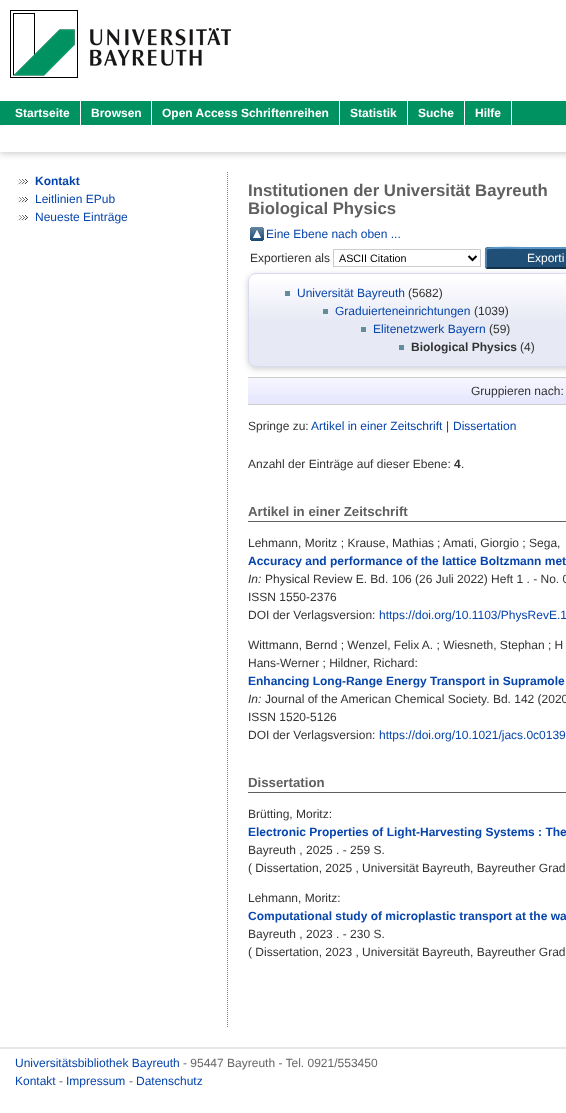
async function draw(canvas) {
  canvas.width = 566;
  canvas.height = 1113;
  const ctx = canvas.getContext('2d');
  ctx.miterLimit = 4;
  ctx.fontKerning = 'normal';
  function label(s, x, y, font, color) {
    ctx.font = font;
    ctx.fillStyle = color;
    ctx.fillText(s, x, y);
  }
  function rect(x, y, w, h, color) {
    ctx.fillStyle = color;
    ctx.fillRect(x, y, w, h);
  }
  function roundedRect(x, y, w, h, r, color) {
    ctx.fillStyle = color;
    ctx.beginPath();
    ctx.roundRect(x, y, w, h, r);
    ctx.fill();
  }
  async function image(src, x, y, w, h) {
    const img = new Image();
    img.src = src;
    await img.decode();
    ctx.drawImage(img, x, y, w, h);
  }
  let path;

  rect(0, 0, 566, 1113, '#fff');
  await image('assets/img1.png', 10, 10, 221, 68);
  rect(0, 101, 566, 24, '#009260');
  ctx.save();
  path = new Path2D('M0 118H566V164H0ZM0 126H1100V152H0Z');
  ctx.clip(path, 'evenodd');
  ctx.fillStyle = '#6464644d';
  ctx.filter = 'blur(3px)';
  ctx.beginPath();
  ctx.rect(0, 128, 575, 26);
  ctx.fill();
  ctx.filter = 'none';
  ctx.restore();
  rect(5, 124, 506, 1, '#009260');
  rect(5, 125, 507, 1, '#fff');
  rect(80, 101, 1, 24, '#fff');
  label('Startseite', 15, 117, 'bold 12px Liberation Sans', '#fff');
  rect(151, 101, 1, 24, '#fff');
  label('Browsen', 91, 117, 'bold 12px Liberation Sans', '#fff');
  rect(339, 101, 1, 24, '#fff');
  label('Open Access Schriftenreihen', 162, 117, 'bold 12px Liberation Sans', '#fff');
  rect(407, 101, 1, 24, '#fff');
  label('Statistik', 350, 117, 'bold 12px Liberation Sans', '#fff');
  rect(464, 101, 1, 24, '#fff');
  label('Suche', 418, 117, 'bold 12px Liberation Sans', '#fff');
  rect(511, 101, 1, 24, '#fff');
  label('Hilfe', 475, 117, 'bold 12px Liberation Sans', '#fff');
  await image('assets/img2.png', 17, 179, 11, 6);
  label('Kontakt', 35, 185, 'bold 12px Liberation Sans', '#0645ad');
  await image('assets/img2.png', 17, 197, 11, 6);
  label('Leitlinien EPub', 35, 203, '12px Liberation Sans', '#0645ad');
  await image('assets/img2.png', 17, 215, 11, 6);
  label('Neueste Einträge', 35, 221, '12px Liberation Sans', '#0645ad');
  path = new Path2D('M227.5 172V1027');
  ctx.strokeStyle = '#808080';
  ctx.setLineDash([1, 1]);
  ctx.stroke(path);
  label('Institutionen der Universität Bayreuth', 248, 196, 'bold 16.75px Liberation Sans', '#606060');
  label('Biological Physics', 248, 214, 'bold 16.75px Liberation Sans', '#606060');
  await image('assets/img3.png', 250, 227, 14, 14);
  label('Eine Ebene nach oben ...', 266, 238, '12px Liberation Sans', '#0645ad');
  label('Exportieren als', 250, 262, '12px Liberation Sans', '#333');
  ctx.fillStyle = '#6464644d';
  ctx.filter = 'blur(3px)';
  ctx.beginPath();
  ctx.roundRect(248, 275, 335, 94, 8);
  ctx.fill();
  ctx.filter = 'none';
  ctx.strokeStyle = '#ccc';
  ctx.setLineDash([]);
  ctx.strokeRect(333.5, 249.5, 147, 17);
  path = new Path2D('M468.5 256L472.5 260L476.5 256');
  ctx.strokeStyle = '#000';
  ctx.lineWidth = 2;
  ctx.stroke(path);
  label('ASCII Citation', 339, 262, '10.75px Liberation Sans', '#000');
  roundedRect(485, 247, 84, 22, 3, '#1f4f76');
  path = new Path2D('M486.5 248.5C488 247 531.5 248 534.5 248H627L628.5 248.5');
  ctx.strokeStyle = '#5b97c7';
  ctx.stroke(path);
  path = new Path2D('M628.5 248.5C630 250 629 256 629 258C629 259.5 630.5 268 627 268H488L486.5 267.5');
  ctx.strokeStyle = '#13324a';
  ctx.stroke(path);
  path = new Path2D('M486.5 267.5C485.5 266 486 260 486 258C486 256 485.5 250 486.5 248.5');
  ctx.strokeStyle = '#5287b3';
  ctx.stroke(path);
  label('Exporti', 527, 262, '12px Liberation Sans', '#fff');
  roundedRect(248, 273, 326, 94, 8, '#e7e9f5');
  await image('assets/img4.png', 248, 274, 318, 91);
  ctx.beginPath();
  ctx.roundRect(248.5, 273.5, 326, 93, 7.5);
  ctx.strokeStyle = '#d8dbef';
  ctx.lineWidth = 1;
  ctx.stroke();
  rect(285, 291, 5, 5, '#638c9c');
  label('Universität Bayreuth', 297, 297, '12px Liberation Sans', '#0645ad');
  label('(5682)', 408, 297, '12px Liberation Sans', '#333');
  rect(323, 309, 5, 5, '#638c9c');
  label('Graduierteneinrichtungen', 335, 315, '12px Liberation Sans', '#0645ad');
  label('(1039)', 474, 315, '12px Liberation Sans', '#333');
  rect(361, 327, 5, 5, '#638c9c');
  label('Elitenetzwerk Bayern', 373, 333, '12px Liberation Sans', '#0645ad');
  label('(59)', 489, 333, '12px Liberation Sans', '#333');
  rect(399, 345, 5, 5, '#638c9c');
  label('Biological Physics', 411, 351, 'bold 12px Liberation Sans', '#333');
  label('(4)', 520, 351, '12px Liberation Sans', '#333');
  rect(248, 378, 318, 26, '#e8e8ff');
  await image('assets/img5.png', 248, 378, 318, 18);
  rect(248, 377, 318, 1, '#ccc');
  rect(248, 404, 318, 1, '#ccc');
  label('Gruppieren nach:', 471, 395, '12px Liberation Sans', '#333');
  label('Springe zu:', 248, 430, '12px Liberation Sans', '#333');
  label('Artikel in einer Zeitschrift', 311, 430, '12px Liberation Sans', '#0645ad');
  label('|', 446, 430, '12px Liberation Sans', '#333');
  label('Dissertation', 453, 430, '12px Liberation Sans', '#0645ad');
  label('Anzahl der Einträge auf dieser Ebene:', 248, 468, '12px Liberation Sans', '#333');
  label('4', 454, 468, 'bold 12px Liberation Sans', '#333');
  label('.', 461, 468, '12px Liberation Sans', '#333');
  rect(248, 521, 318, 1, '#606060');
  label('Artikel in einer Zeitschrift', 248, 516, 'bold 13.25px Liberation Sans', '#606060');
  label('Lehmann, Moritz ; Krause, Mathias', 248, 547, '12px Liberation Sans', '#333');
  label(';', 437, 547, '12px Liberation Sans', '#333');
  label('Amati, Giorgio ; Sega,', 443, 547, '12px Liberation Sans', '#333');
  label('Accuracy and performance of the lattice Boltzmann met', 248, 565, 'bold 12px Liberation Sans', '#0645ad');
  label('In:', 248, 583, 'italic 12px Liberation Sans', '#333');
  label('Physical Review E. Bd. 106 (26 Juli 2022) Heft 1 . - No. 0', 265, 583, '12px Liberation Sans', '#333');
  label('ISSN 1550-2376', 248, 601, '12px Liberation Sans', '#333');
  label('DOI der Verlagsversion:', 248, 619, '12px Liberation Sans', '#333');
  label('https://doi.org/10.1103/PhysRevE.1', 379, 619, '12px Liberation Sans', '#0645ad');
  label('Wittmann, Bernd ; Wenzel, Felix A. ; Wiesneth, Stephan ; H', 248, 649, '12px Liberation Sans', '#333');
  label('Hans-Werner ; Hildner, Richard:', 248, 667, '12px Liberation Sans', '#333');
  label('Enhancing Long-Range Energy Transport in Supramole', 248, 685, 'bold 12px Liberation Sans', '#0645ad');
  label('In:', 248, 703, 'italic 12px Liberation Sans', '#333');
  label('Journal of the American Chemical Society. Bd. 142 (2020', 265, 703, '12px Liberation Sans', '#333');
  label('ISSN 1520-5126', 248, 721, '12px Liberation Sans', '#333');
  label('DOI der Verlagsversion:', 248, 739, '12px Liberation Sans', '#333');
  label('https://doi.org/10.1021/jacs.0c0139', 379, 739, '12px Liberation Sans', '#0645ad');
  rect(248, 792, 318, 1, '#606060');
  label('Dissertation', 248, 787, 'bold 13.25px Liberation Sans', '#606060');
  label('Brütting, Moritz:', 248, 818, '12px Liberation Sans', '#333');
  label('Electronic Properties of Light-Harvesting Systems : The', 248, 836, 'bold 12px Liberation Sans', '#0645ad');
  label('Bayreuth , 2025 . - 259 S.', 248, 854, '12px Liberation Sans', '#333');
  label('( Dissertation, 2025 , Universität Bayreuth, Bayreuther Grad', 248, 872, '12px Liberation Sans', '#333');
  label('Lehmann, Moritz:', 248, 902, '12px Liberation Sans', '#333');
  label('Computational study of microplastic transport at the wa', 248, 920, 'bold 12px Liberation Sans', '#0645ad');
  label('Bayreuth , 2023 . - 230 S.', 248, 938, '12px Liberation Sans', '#333');
  label('( Dissertation, 2023 , Universität Bayreuth, Bayreuther Grad', 248, 956, '12px Liberation Sans', '#333');
  rect(0, 1047, 566, 2, '#e6e6e6');
  label('Universitätsbibliothek Bayreuth', 15, 1067, '12px Liberation Sans', '#0645ad');
  label('- 95447 Bayreuth - Tel. 0921/553450', 183, 1067, '12px Liberation Sans', '#666');
  label('Kontakt', 15, 1085, '12px Liberation Sans', '#0645ad');
  label('-', 59, 1085, '12px Liberation Sans', '#666');
  label('Impressum', 66, 1085, '12px Liberation Sans', '#0645ad');
  label('-', 129, 1085, '12px Liberation Sans', '#666');
  label('Datenschutz', 136, 1085, '12px Liberation Sans', '#0645ad');
}

draw(document.querySelector('canvas'));
